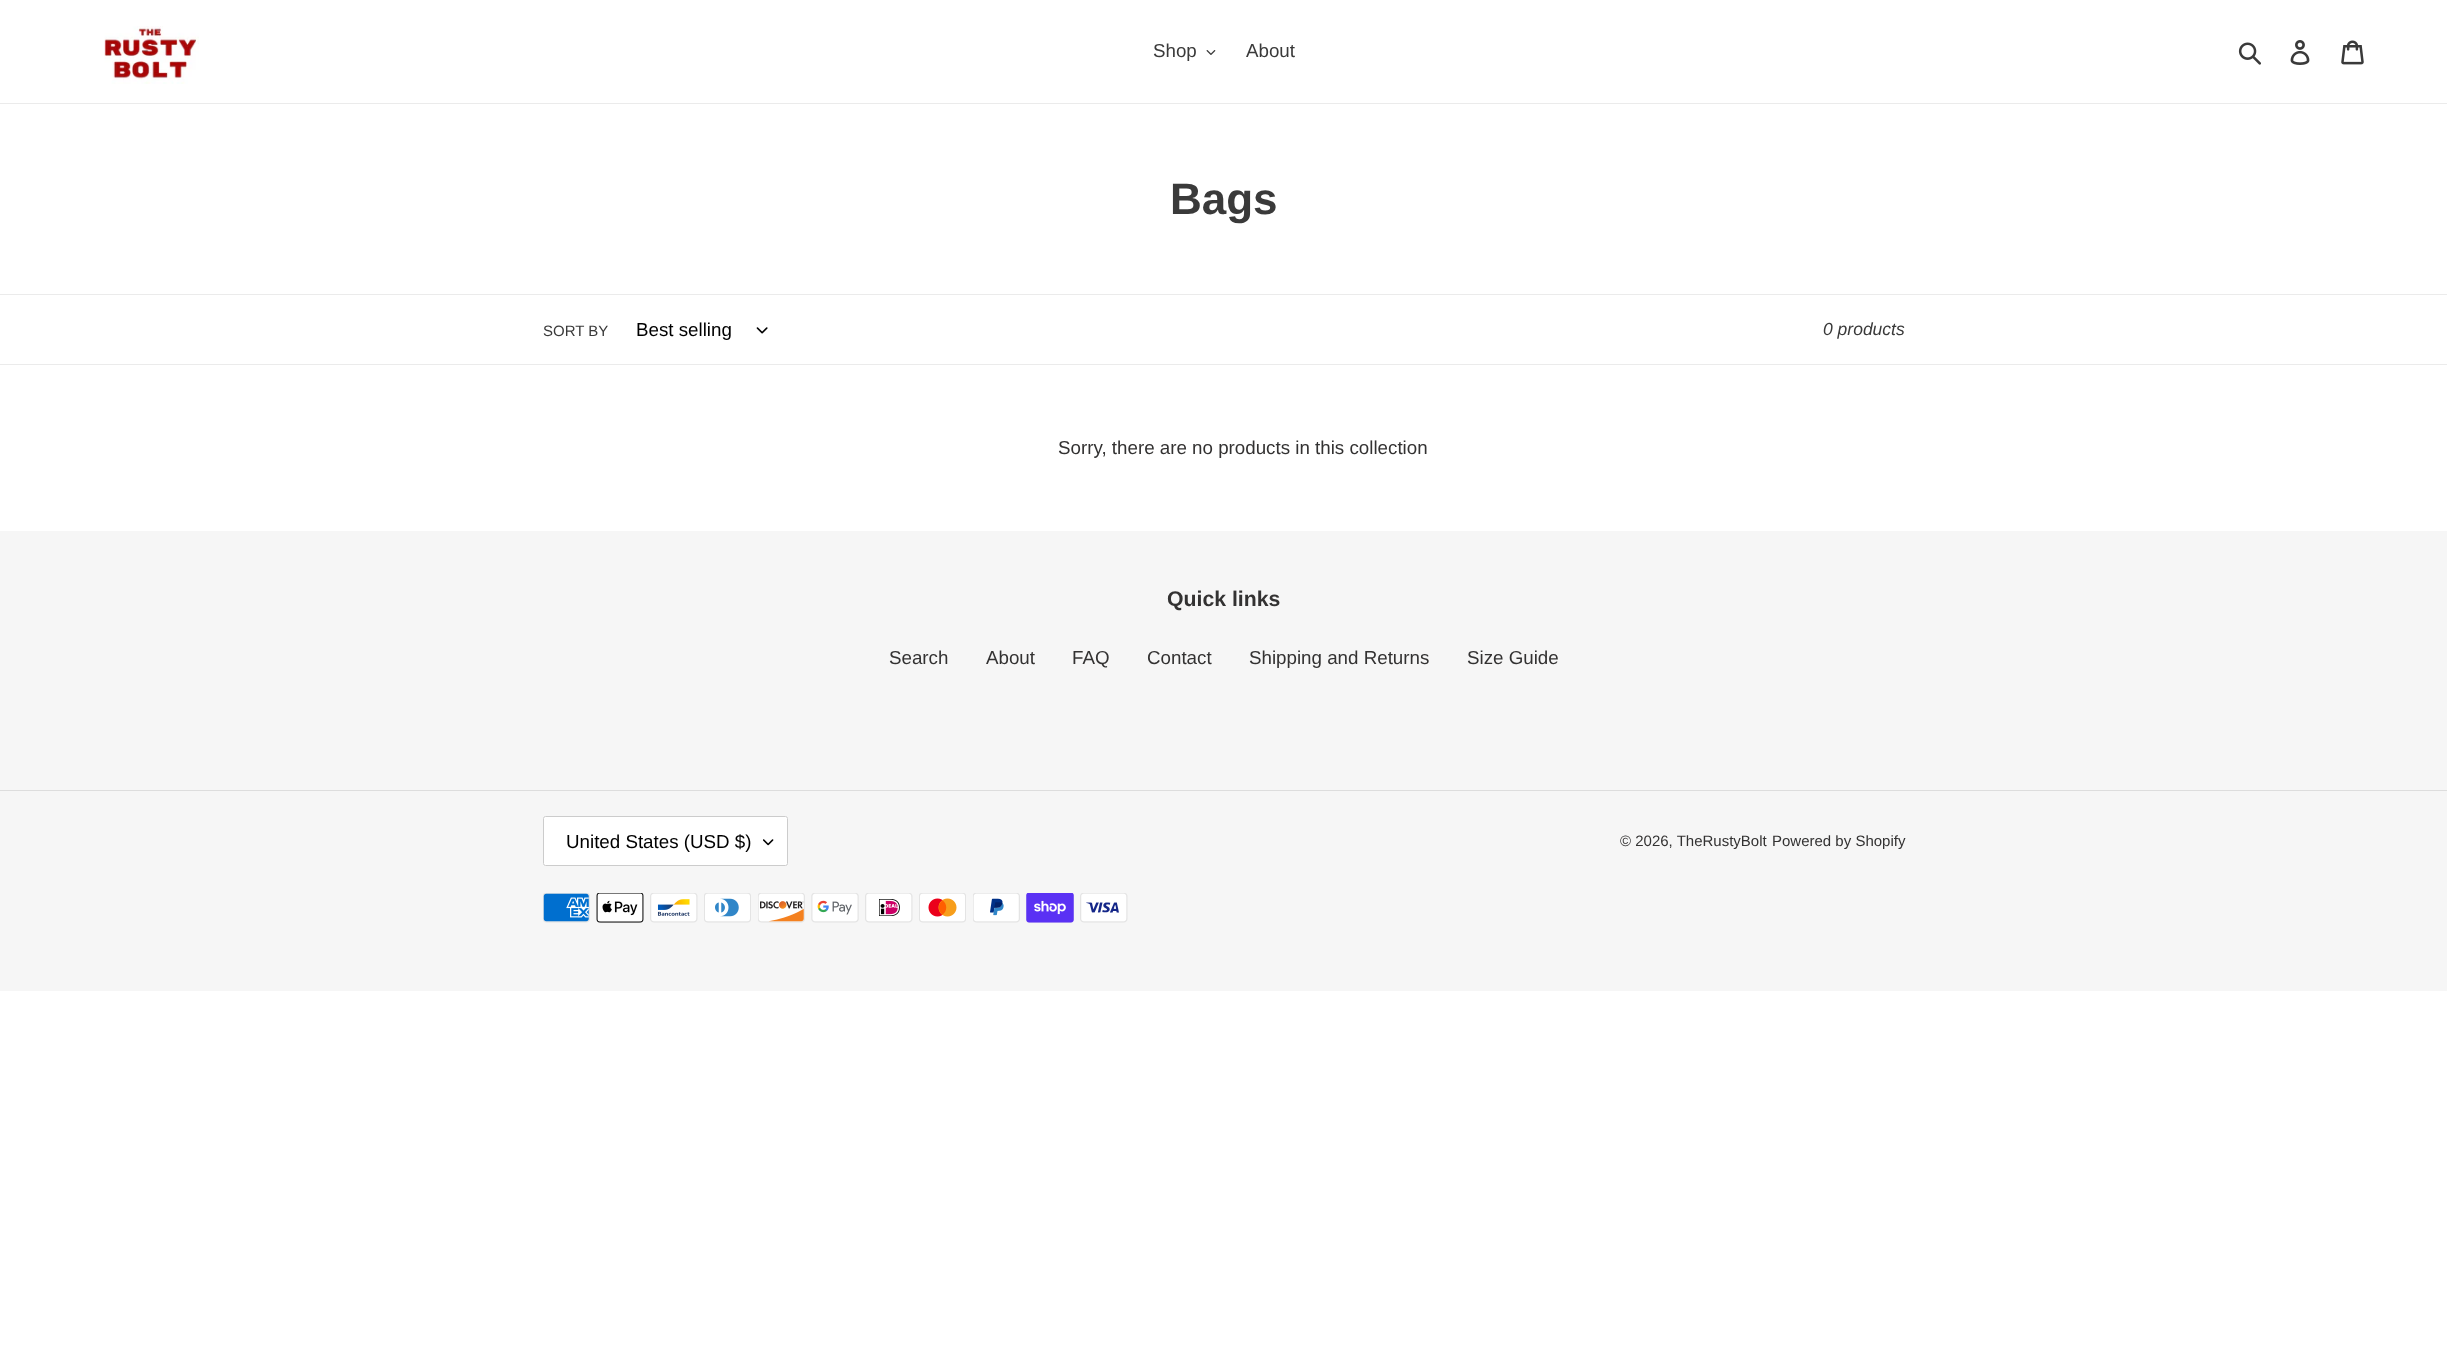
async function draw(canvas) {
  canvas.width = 2447;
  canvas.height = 1370;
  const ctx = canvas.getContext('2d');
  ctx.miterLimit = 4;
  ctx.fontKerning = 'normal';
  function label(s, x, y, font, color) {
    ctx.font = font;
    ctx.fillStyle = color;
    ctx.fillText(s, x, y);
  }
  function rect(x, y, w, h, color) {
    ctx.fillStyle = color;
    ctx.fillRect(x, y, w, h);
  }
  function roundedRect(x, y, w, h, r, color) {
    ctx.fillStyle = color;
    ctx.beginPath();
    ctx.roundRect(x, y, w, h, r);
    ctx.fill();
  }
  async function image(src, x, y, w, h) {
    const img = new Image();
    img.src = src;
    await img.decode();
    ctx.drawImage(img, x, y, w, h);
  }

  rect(0, 0, 2447, 1370, '#fff');
  rect(0, 103, 2447, 1, '#ebebeb');
  await image('assets/img1.png', 104, 26, 95, 58);
  label('Shop', 1153, 57, '18.75px Liberation Sans', '#3a3a3a');
  await image('assets/img2.png', 1206, 50, 10, 5);
  label('About', 1246, 57, '18.75px Liberation Sans', '#3a3a3a');
  await image('assets/img3.png', 2238, 42, 23, 23);
  await image('assets/img4.png', 2290, 40, 20, 25);
  await image('assets/img5.png', 2341, 40, 23, 25);
  label('Bags', 1170, 214, 'bold 44px Liberation Sans', '#3a3a3a');
  rect(0, 294, 2447, 1, '#ebebeb');
  rect(0, 364, 2447, 1, '#ebebeb');
  label('SORT BY', 543, 336, '15px Liberation Sans', '#3a3a3a');
  label('Best selling', 636, 336, '18.75px Liberation Sans', '#000');
  await image('assets/img6.png', 756, 327, 12, 7);
  label('0 products', 1823, 335, 'italic 17.5px Liberation Sans', '#3a3a3a');
  label('Sorry, there are no products in this collection', 1058, 454, '18.75px Liberation Sans', '#333232');
  rect(0, 531, 2447, 460, '#f6f6f6');
  label('Quick links', 1167, 606, 'bold 21.25px Liberation Sans', '#333232');
  label('Search', 889, 664, '18.75px Liberation Sans', '#333232');
  label('About', 986, 664, '18.75px Liberation Sans', '#333232');
  label('FAQ', 1072, 664, '18.75px Liberation Sans', '#333232');
  label('Contact', 1147, 664, '18.75px Liberation Sans', '#333232');
  label('Shipping and Returns', 1249, 664, '18.75px Liberation Sans', '#333232');
  label('Size Guide', 1467, 664, '18.75px Liberation Sans', '#333232');
  rect(0, 790, 2447, 1, '#ddd');
  roundedRect(543, 816, 245, 50, 2.5, '#fff');
  await image('assets/img7.png', 763, 839, 11, 7);
  ctx.beginPath();
  ctx.roundRect(543.5, 816.5, 244, 49, 2);
  ctx.strokeStyle = '#ccc';
  ctx.stroke();
  label('United States (USD $)', 566, 848, '18.75px Liberation Sans', '#000');
  label('© 2026, TheRustyBolt', 1620, 846, '15px Liberation Sans', '#333232');
  label('Powered by Shopify', 1772, 846, '15px Liberation Sans', '#333232');
  await image('assets/img8.png', 543, 893, 47, 30);
  await image('assets/img9.png', 596, 893, 48, 30);
  await image('assets/img10.png', 650, 893, 48, 30);
  await image('assets/img11.png', 704, 893, 47, 30);
  await image('assets/img12.png', 758, 893, 47, 30);
  await image('assets/img13.png', 811, 893, 48, 30);
  await image('assets/img14.png', 865, 893, 48, 30);
  await image('assets/img15.png', 919, 893, 47, 30);
  await image('assets/img16.png', 973, 893, 47, 30);
  await image('assets/img17.png', 1026, 893, 48, 30);
  await image('assets/img18.png', 1080, 893, 48, 30);
}

draw(document.querySelector('canvas'));
